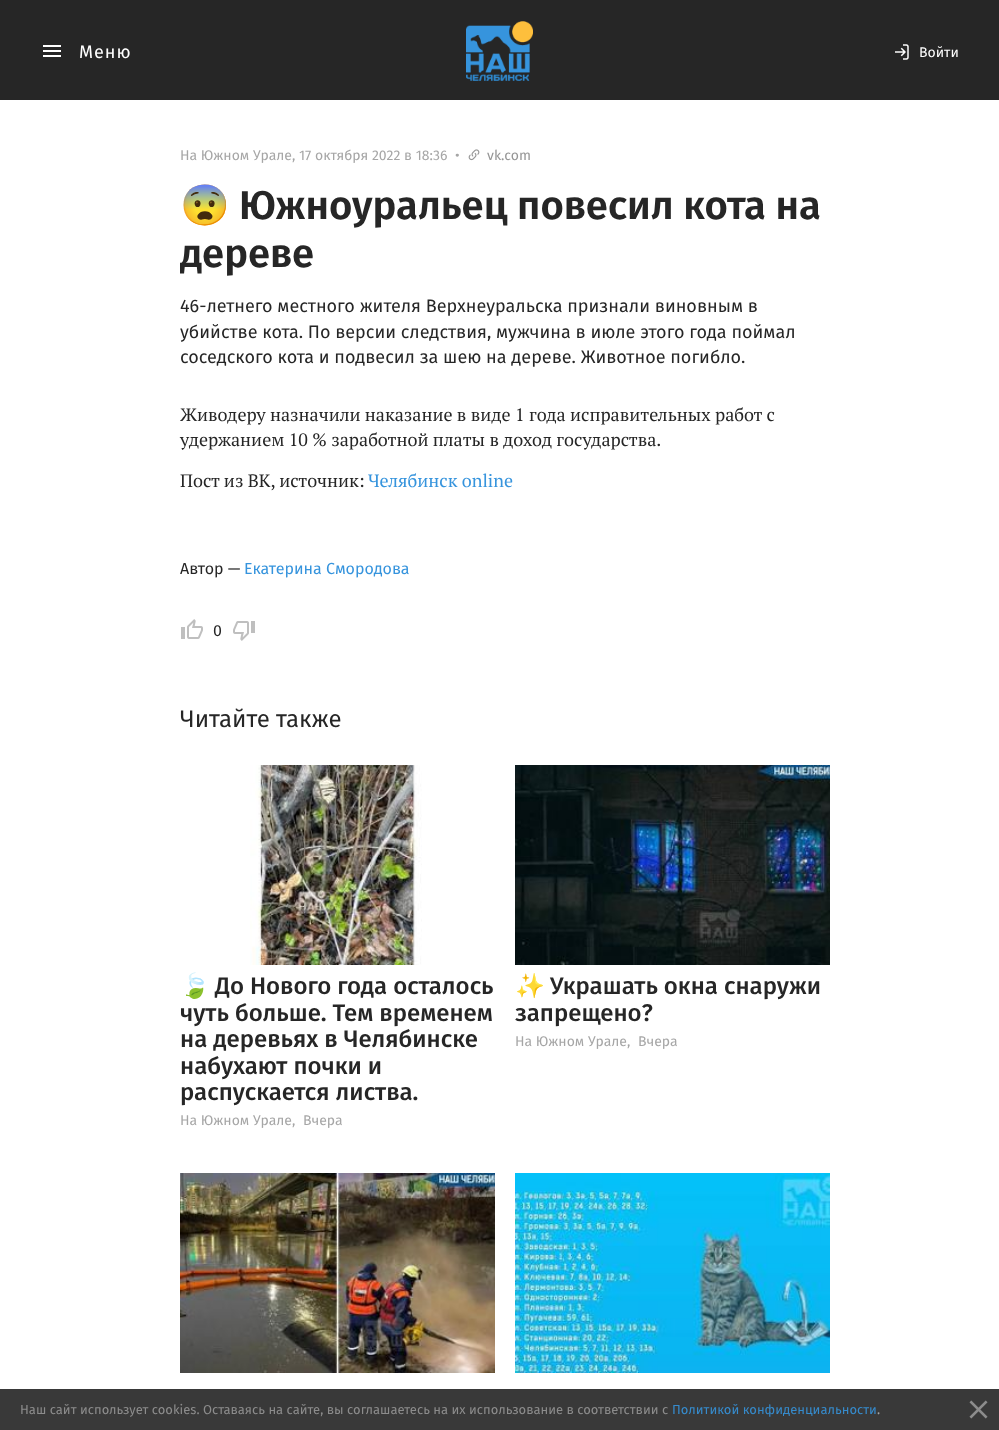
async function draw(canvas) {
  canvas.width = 999;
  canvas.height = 1430;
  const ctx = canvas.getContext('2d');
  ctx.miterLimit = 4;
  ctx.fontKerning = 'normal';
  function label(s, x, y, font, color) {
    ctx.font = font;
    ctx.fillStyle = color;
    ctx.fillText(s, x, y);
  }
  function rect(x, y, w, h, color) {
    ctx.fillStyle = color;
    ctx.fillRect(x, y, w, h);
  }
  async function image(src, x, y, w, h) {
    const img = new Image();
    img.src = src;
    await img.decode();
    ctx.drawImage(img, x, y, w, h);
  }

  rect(0, 0, 999, 1430, '#fff');
  rect(0, 0, 999, 100, '#262626');
  await image('assets/img1.png', 43, 45, 18, 12);
  ctx.letterSpacing = '1px';
  label('Меню', 79, 58, '18px Fira Sans', '#fff');
  await image('assets/img2.png', 466, 21, 67, 60);
  await image('assets/img3.png', 895, 44, 14, 16);
  ctx.letterSpacing = '0px';
  label('Войти', 919, 57, '14px Fira Sans', '#fff');
  label('На Южном Урале,', 180, 160, '14px Fira Sans', '#a6a6a6');
  label('17 октября 2022 в 18:36', 299, 160, '14px Fira Sans', '#a6a6a6');
  label('•', 455, 160, '14px Fira Sans', '#a6a6a6');
  await image('assets/img4.png', 468, 149, 12, 12);
  label('vk.com', 487, 160, '14px Fira Sans', '#969696');
  label('😨', 180, 219, 'bold 40px Noto Color Emoji', '#262626');
  label('Южноуральец повесил кота на', 239, 219, '600 40px Fira Sans', '#262626');
  label('дереве', 180, 267, '600 40px Fira Sans', '#262626');
  label('46-летнего местного жителя Верхнеуральска признали виновным в', 180, 312, '18px Fira Sans', '#262626');
  label('убийстве кота. По версии следствия, мужчина в июле этого года поймал', 180, 338, '18px Fira Sans', '#262626');
  label('соседского кота и подвесил за шею на дереве. Животное погибло.', 180, 363, '18px Fira Sans', '#262626');
  label('Живодеру назначили наказание в виде 1 года исправительных работ с', 180, 421, '18px PT Serif', '#262626');
  label('удержанием 10 % заработной платы в доход государства.', 180, 446, '18px PT Serif', '#262626');
  label('Пост из ВК, источник:', 180, 487, '18px PT Serif', '#262626');
  label('Челябинск online', 368, 487, '18px PT Serif', '#3694dd');
  label('Автор —', 180, 574, '16px Fira Sans', '#262626');
  label('Екатерина Смородова', 244, 574, '16px Fira Sans', '#3694dd');
  await image('assets/img5.png', 181, 619, 22, 20);
  label('0', 213, 636, '16px Fira Sans', '#262626');
  await image('assets/img6.png', 233, 621, 22, 20);
  label('Читайте также', 180, 727, '24px Fira Sans', '#262626');
  await image('assets/img7.png', 250, 765, 172, 200);
  ctx.save();
  ctx.beginPath();
  ctx.rect(180, 665, 650, 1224);
  ctx.clip();
  label('🍃', 180, 994, '24px Noto Color Emoji', '#262626');
  ctx.restore();
  label('До Нового года осталось', 215, 994, '500 24px Fira Sans', '#262626');
  label('чуть больше. Тем временем', 180, 1021, '500 24px Fira Sans', '#262626');
  label('на деревьях в Челябинске', 180, 1047, '500 24px Fira Sans', '#262626');
  label('набухают почки и', 180, 1074, '500 24px Fira Sans', '#262626');
  label('распускается листва.', 180, 1100, '500 24px Fira Sans', '#262626');
  label('На Южном Урале,', 180, 1125, '14px Fira Sans', '#a6a6a6');
  label('Вчера', 303, 1125, '14px Fira Sans', '#a6a6a6');
  await image('assets/img8.png', 515, 765, 315, 200);
  label('✨', 515, 994, '24px Noto Color Emoji', '#262626');
  label('Украшать окна снаружи', 550, 994, '500 24px Fira Sans', '#262626');
  label('запрещено?', 515, 1021, '500 24px Fira Sans', '#262626');
  label('На Южном Урале,', 515, 1046, '14px Fira Sans', '#a6a6a6');
  label('Вчера', 638, 1046, '14px Fira Sans', '#a6a6a6');
  await image('assets/img9.png', 180, 1173, 315, 200);
  await image('assets/img10.png', 515, 1173, 315, 200);
  rect(0, 1389, 999, 41, '#232323e6');
  label('Наш сайт использует cookies. Оставаясь на сайте, вы соглашаетесь на их использование в соответствии с', 20, 1414, '13px Fira Sans', '#8c8c8c');
  label('Политикой конфиденциальности', 672, 1414, '13px Fira Sans', '#368bcc');
  label('.', 877, 1414, '13px Fira Sans', '#a6a6a6');
  await image('assets/img11.png', 969, 1400, 19, 19);
}

draw(document.querySelector('canvas'));
